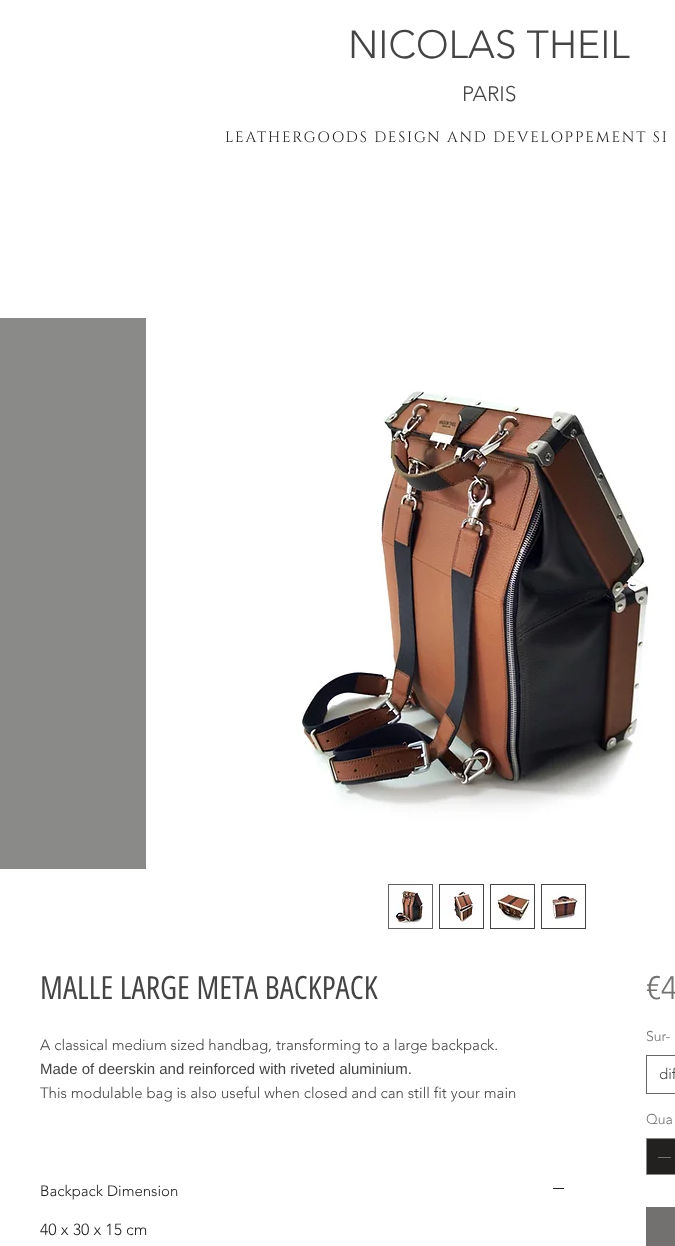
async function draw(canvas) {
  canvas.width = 675;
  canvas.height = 1246;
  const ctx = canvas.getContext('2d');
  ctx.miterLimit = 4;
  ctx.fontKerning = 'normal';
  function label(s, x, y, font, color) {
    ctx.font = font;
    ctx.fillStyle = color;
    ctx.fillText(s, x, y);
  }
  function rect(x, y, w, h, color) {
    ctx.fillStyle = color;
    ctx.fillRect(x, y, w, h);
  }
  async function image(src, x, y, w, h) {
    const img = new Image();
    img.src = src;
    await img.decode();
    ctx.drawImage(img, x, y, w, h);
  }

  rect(0, 0, 675, 1246, '#fff');
  label('NICOLAS THEIL', 348, 58, '300 39px "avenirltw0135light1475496"', '#444');
  label('PARIS', 462, 101, '300 21px "avenirltw0135light1475496"', '#444');
  ctx.letterSpacing = '1.8px';
  label('LEATHERGOODS DESIGN AND DEVELOPPEMENT SI', 225, 142, '15px Cinzel', '#222120');
  rect(0, 318, 146, 551, '#8a8a89');
  await image('assets/img1.png', 146, 318, 529, 551);
  ctx.strokeStyle = '#62615f';
  ctx.strokeRect(388.5, 884.5, 44, 44);
  await image('assets/img2.png', 389, 885, 43, 43);
  rect(439, 884, 45, 45, '#43423f');
  await image('assets/img3.png', 440, 885, 43, 43);
  rect(490, 884, 45, 45, '#43423f');
  await image('assets/img4.png', 491, 885, 43, 43);
  rect(541, 884, 45, 45, '#43423f');
  await image('assets/img5.png', 542, 885, 43, 43);
  ctx.letterSpacing = '0px';
  label('MALLE LARGE META BACKPACK', 40, 999, '32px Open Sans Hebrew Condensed', '#444');
  label('A classical medium sized handbag, transforming to a large backpack.', 40, 1050, '300 15px "avenirltw0135light1475496"', '#444');
  label('Made of deerskin and reinforced with riveted aluminium.', 40, 1074, '15px Liberation Sans', '#444');
  label('This modulable bag is also useful when closed and can still fit your main', 40, 1098, '300 15px "avenirltw0135light1475496"', '#444');
  label('Backpack Dimension', 40, 1196, '300 15px "avenirltw0135light1475496"', '#222120');
  rect(553, 1188, 11, 1, '#222120');
  label('40 x 30 x 15 cm', 40, 1235, '300 16px "avenirltw0135light1475496"', '#222120');
  label('€4', 646, 999, '300 32px "avenirltw0135light1475496"', '#72716f');
  label('Sur-', 646, 1041, '300 14px "avenirltw0135light1475496"', '#72716f');
  ctx.strokeStyle = '#666';
  ctx.strokeRect(646.5, 1055.5, 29, 38);
  label('dif', 659, 1079, '300 15px "avenirltw0135light1475496"', '#444');
  label('Qua', 646, 1124, '300 14px "avenirltw0135light1475496"', '#72716f');
  ctx.fillStyle = '#222120';
  ctx.beginPath();
  ctx.rect(646.5, 1138.5, 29, 36);
  ctx.fill();
  ctx.strokeStyle = '#8a8988';
  ctx.stroke();
  rect(658, 1157, 13, 1, '#72716f');
  rect(646, 1207, 29, 39, '#72716f');
}

draw(document.querySelector('canvas'));
